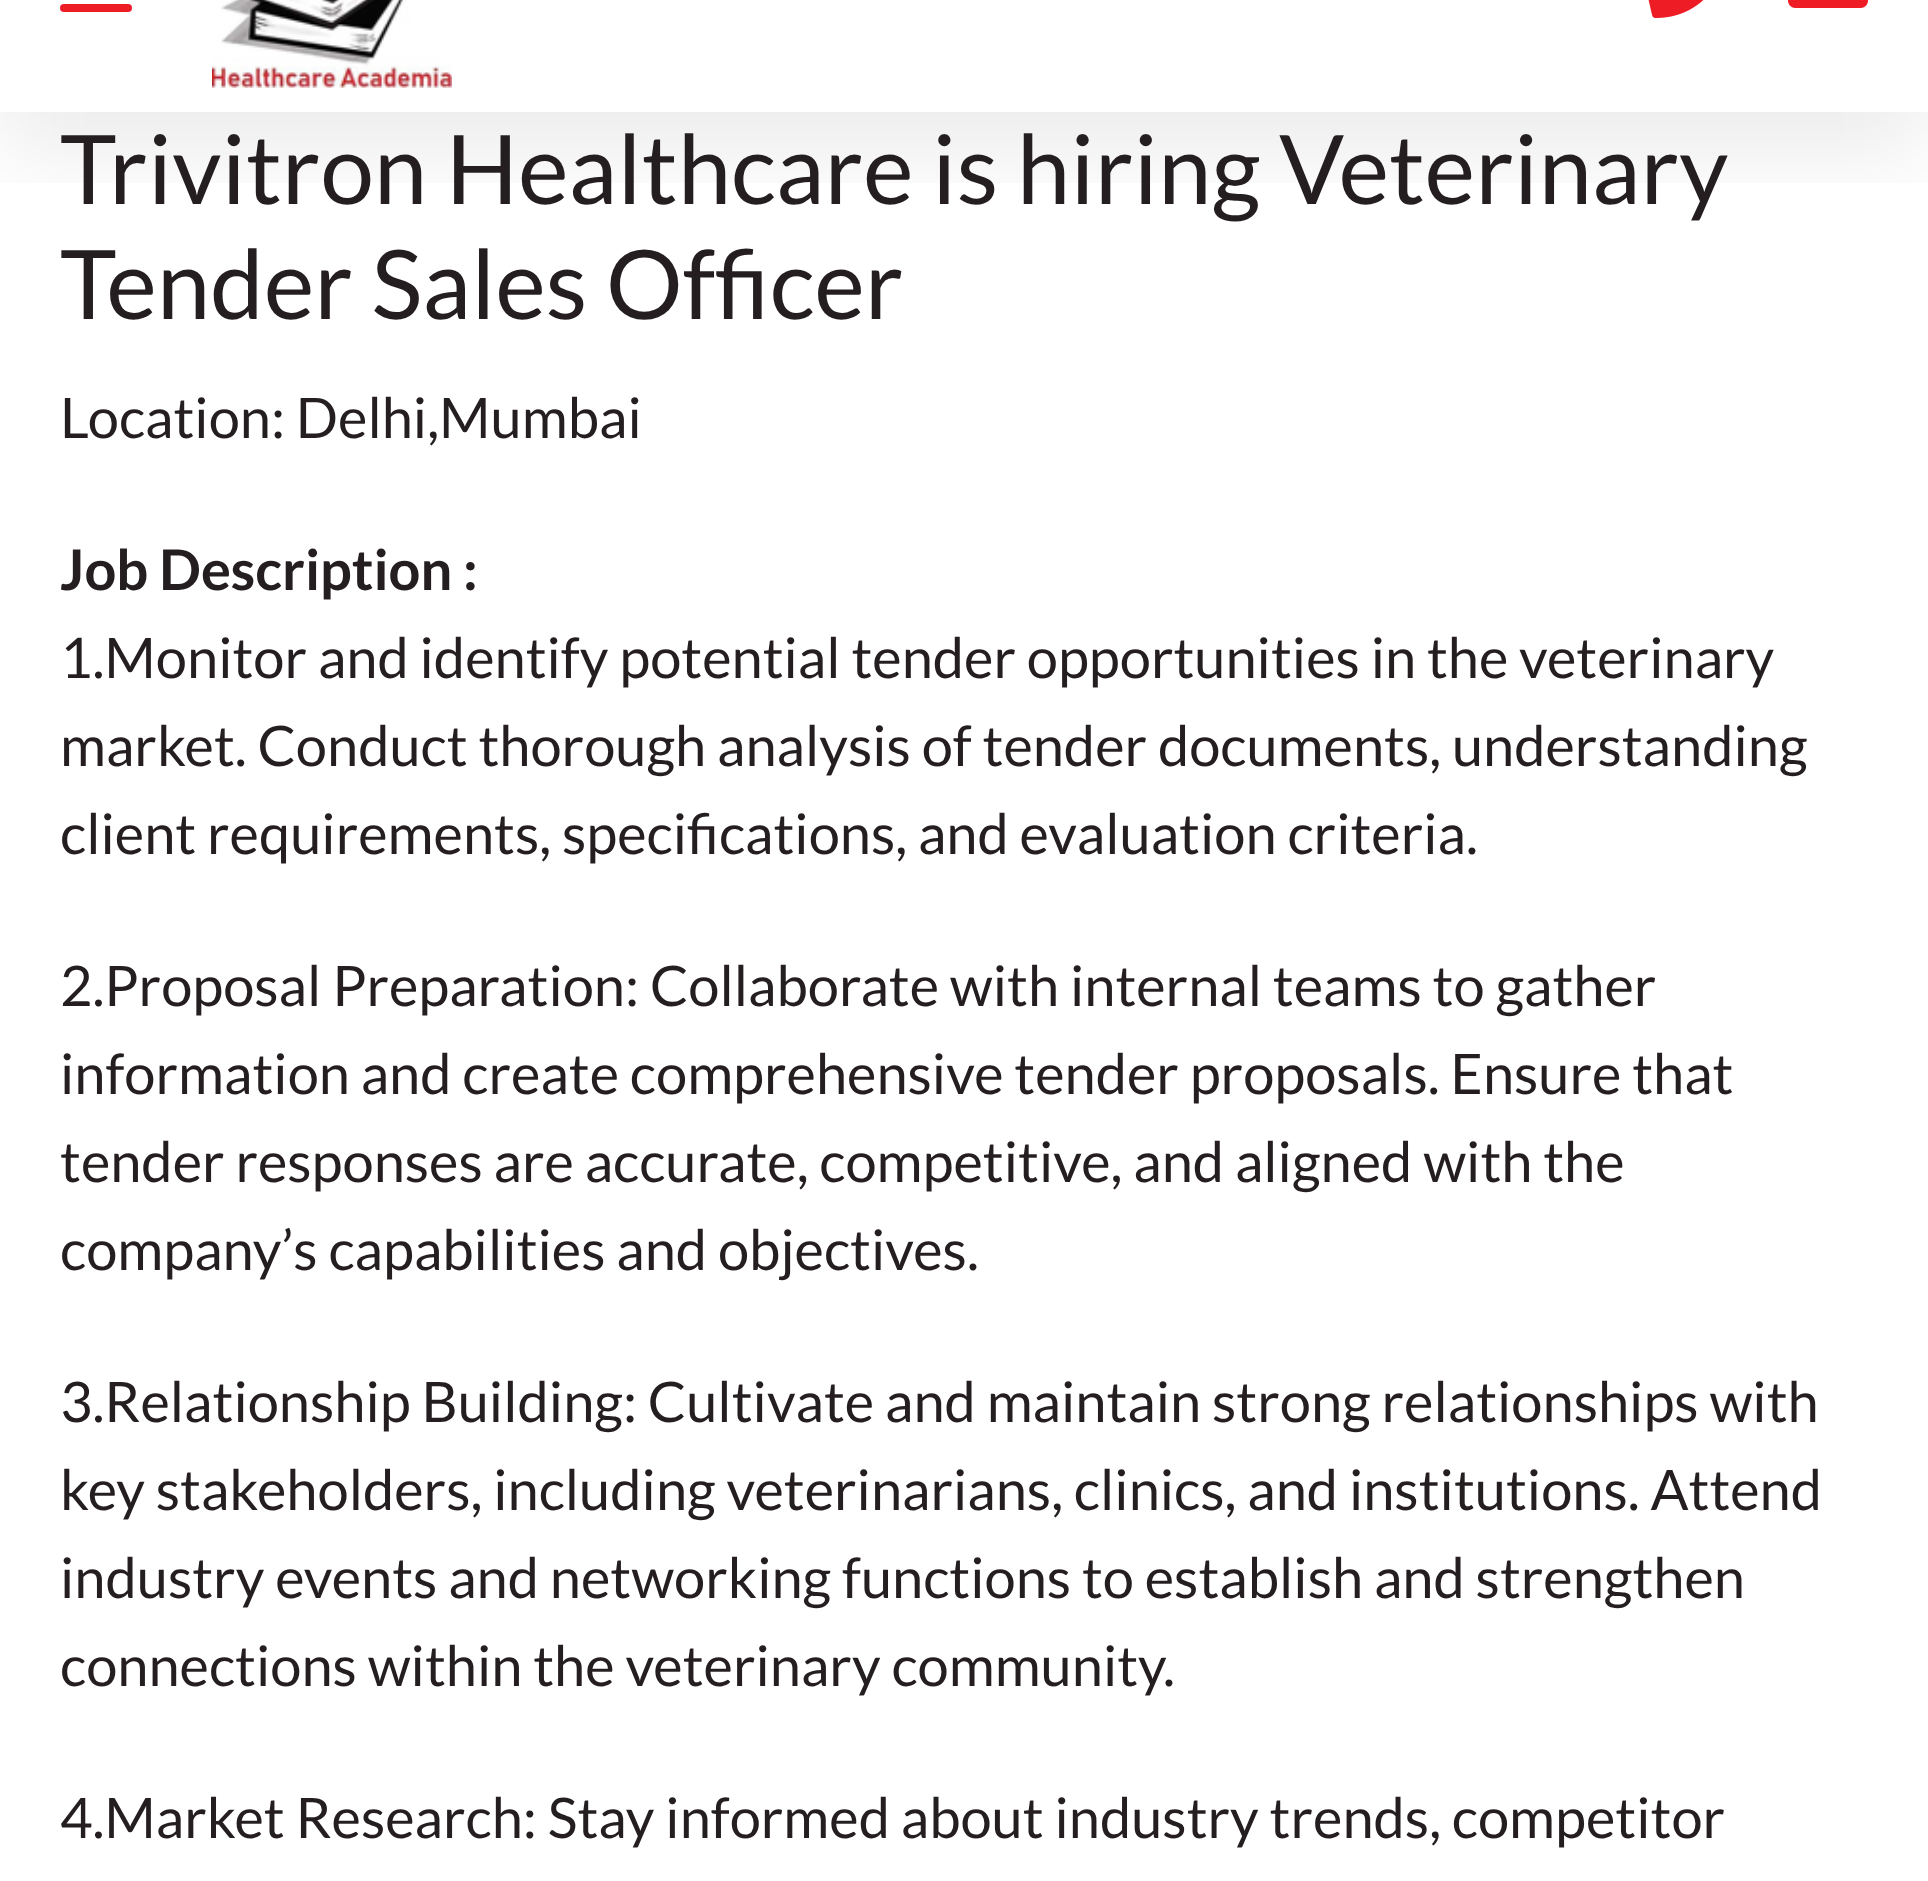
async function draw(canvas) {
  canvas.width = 1928;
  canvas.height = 1881;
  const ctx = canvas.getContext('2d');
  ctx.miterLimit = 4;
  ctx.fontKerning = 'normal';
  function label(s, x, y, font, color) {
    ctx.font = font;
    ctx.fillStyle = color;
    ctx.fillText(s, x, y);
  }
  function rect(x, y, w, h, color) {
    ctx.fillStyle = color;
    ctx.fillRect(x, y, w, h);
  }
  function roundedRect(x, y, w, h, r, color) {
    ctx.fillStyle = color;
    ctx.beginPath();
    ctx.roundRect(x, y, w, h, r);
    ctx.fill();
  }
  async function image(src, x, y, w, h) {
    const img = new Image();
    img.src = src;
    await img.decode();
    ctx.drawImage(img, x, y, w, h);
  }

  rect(0, 0, 1928, 1881, '#fff');
  ctx.save();
  ctx.beginPath();
  ctx.rect(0, 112, 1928, 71);
  ctx.clip();
  ctx.fillStyle = '#00000014';
  ctx.filter = 'blur(46px)';
  ctx.beginPath();
  ctx.rect(0, -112, 1928, 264);
  ctx.fill();
  ctx.filter = 'none';
  ctx.restore();
  roundedRect(60, 4, 72, 8, 4, '#ee1c25');
  await image('assets/img1.png', 212, 0, 240, 88);
  await image('assets/img2.png', 1648, 0, 56, 18);
  await image('assets/img3.png', 1788, 0, 80, 8);
  label('Trivitron Healthcare is hiring Veterinary', 60, 204, '96px Lato', '#241e20');
  label('Tender Sales Officer', 60, 319, '96px Lato', '#241e20');
  label('Location: Delhi,Mumbai', 60, 438, '56px Lato', '#241e20');
  label('Job Description :', 60, 590, 'bold 56px Lato', '#241e20');
  label('1.Monitor and identify potential tender opportunities in the veterinary', 60, 678, '56px Lato', '#241e20');
  label('market. Conduct thorough analysis of tender documents, understanding', 60, 766, '56px Lato', '#241e20');
  label('client requirements, specifications, and evaluation criteria.', 60, 854, '56px Lato', '#241e20');
  label('2.Proposal Preparation: Collaborate with internal teams to gather', 60, 1006, '56px Lato', '#241e20');
  label('information and create comprehensive tender proposals. Ensure that', 60, 1094, '56px Lato', '#241e20');
  label('tender responses are accurate, competitive, and aligned with the', 60, 1182, '56px Lato', '#241e20');
  label('company’s capabilities and objectives.', 60, 1270, '56px Lato', '#241e20');
  label('3.Relationship Building: Cultivate and maintain strong relationships with', 60, 1422, '56px Lato', '#241e20');
  label('key stakeholders, including veterinarians, clinics, and institutions. Attend', 60, 1510, '56px Lato', '#241e20');
  label('industry events and networking functions to establish and strengthen', 60, 1598, '56px Lato', '#241e20');
  label('connections within the veterinary community.', 60, 1686, '56px Lato', '#241e20');
  label('4.Market Research: Stay informed about industry trends, competitor', 60, 1838, '56px Lato', '#241e20');
}

draw(document.querySelector('canvas'));
